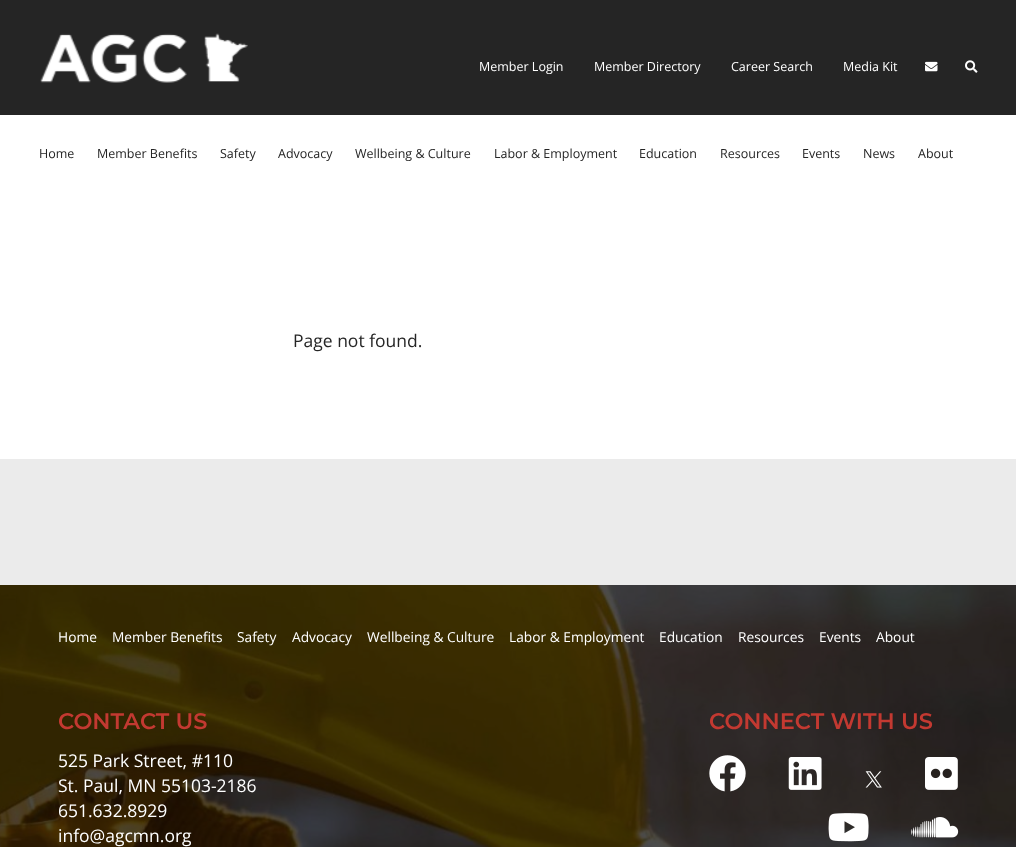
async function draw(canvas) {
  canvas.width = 1016;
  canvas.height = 847;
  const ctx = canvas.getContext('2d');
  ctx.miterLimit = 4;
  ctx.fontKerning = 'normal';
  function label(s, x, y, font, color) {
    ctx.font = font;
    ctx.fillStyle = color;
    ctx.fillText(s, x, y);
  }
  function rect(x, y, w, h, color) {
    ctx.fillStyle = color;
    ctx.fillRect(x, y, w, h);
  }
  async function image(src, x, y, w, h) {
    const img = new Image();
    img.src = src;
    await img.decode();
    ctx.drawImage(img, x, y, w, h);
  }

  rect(0, 0, 1016, 847, '#fff');
  rect(0, 0, 1016, 115, '#252525');
  await image('assets/img1.png', 40, 33, 208, 50);
  label('Member Login', 479, 71, '12.5px Open Sans', '#fff');
  label('Member Directory', 594, 71, '12.5px Open Sans', '#fff');
  label('Career Search', 731, 71, '12.5px Open Sans', '#fff');
  label('Media Kit', 843, 71, '12.5px Open Sans', '#fff');
  await image('assets/img2.png', 925, 61, 13, 11);
  await image('assets/img3.png', 965, 60, 13, 13);
  label('Home', 39, 158, '12.5px Open Sans', '#252525');
  label('Member Benefits', 97, 158, '12.5px Open Sans', '#252525');
  label('Safety', 220, 158, '12.5px Open Sans', '#252525');
  label('Advocacy', 278, 158, '12.5px Open Sans', '#252525');
  label('Wellbeing & Culture', 355, 158, '12.5px Open Sans', '#252525');
  label('Labor & Employment', 494, 158, '12.5px Open Sans', '#252525');
  label('Education', 639, 158, '12.5px Open Sans', '#252525');
  label('Resources', 720, 158, '12.5px Open Sans', '#252525');
  label('Events', 802, 158, '12.5px Open Sans', '#252525');
  label('News', 863, 158, '12.5px Open Sans', '#252525');
  label('About', 918, 158, '12.5px Open Sans', '#252525');
  label('Page not found.', 293, 347, '17.5px Open Sans', '#252525');
  rect(0, 459, 1016, 126, '#ebebeb');
  await image('assets/img4.png', 0, 585, 1016, 262);
  label('Home', 58, 642, '13.75px Open Sans', '#fff');
  label('Member Benefits', 112, 642, '13.75px Open Sans', '#fff');
  label('Safety', 237, 642, '13.75px Open Sans', '#fff');
  label('Advocacy', 292, 642, '13.75px Open Sans', '#fff');
  label('Wellbeing & Culture', 367, 642, '13.75px Open Sans', '#fff');
  label('Labor & Employment', 509, 642, '13.75px Open Sans', '#fff');
  label('Education', 659, 642, '13.75px Open Sans', '#fff');
  label('Resources', 738, 642, '13.75px Open Sans', '#fff');
  label('Events', 819, 642, '13.75px Open Sans', '#fff');
  label('About', 876, 642, '13.75px Open Sans', '#fff');
  label('CONTACT US', 58, 729, '600 22.5px Montserrat', '#c33931');
  label('525 Park Street, #110', 58, 767, '17.5px Open Sans', '#fff');
  label('St. Paul, MN 55103-2186', 58, 792, '17.5px Open Sans', '#fff');
  label('651.632.8929', 58, 817, '17.5px Open Sans', '#fff');
  label('info@agcmn.org', 58, 842, '17.5px Open Sans', '#fff');
  label('CONNECT WITH US', 709, 729, '600 22.5px Montserrat', '#c33931');
  await image('assets/img5.png', 709, 755, 37, 37);
  await image('assets/img6.png', 788, 757, 34, 33);
  await image('assets/img7.png', 865, 771, 17, 17);
  await image('assets/img8.png', 925, 757, 33, 33);
  await image('assets/img9.png', 828, 813, 41, 29);
  await image('assets/img10.png', 911, 817, 48, 21);
}

draw(document.querySelector('canvas'));
